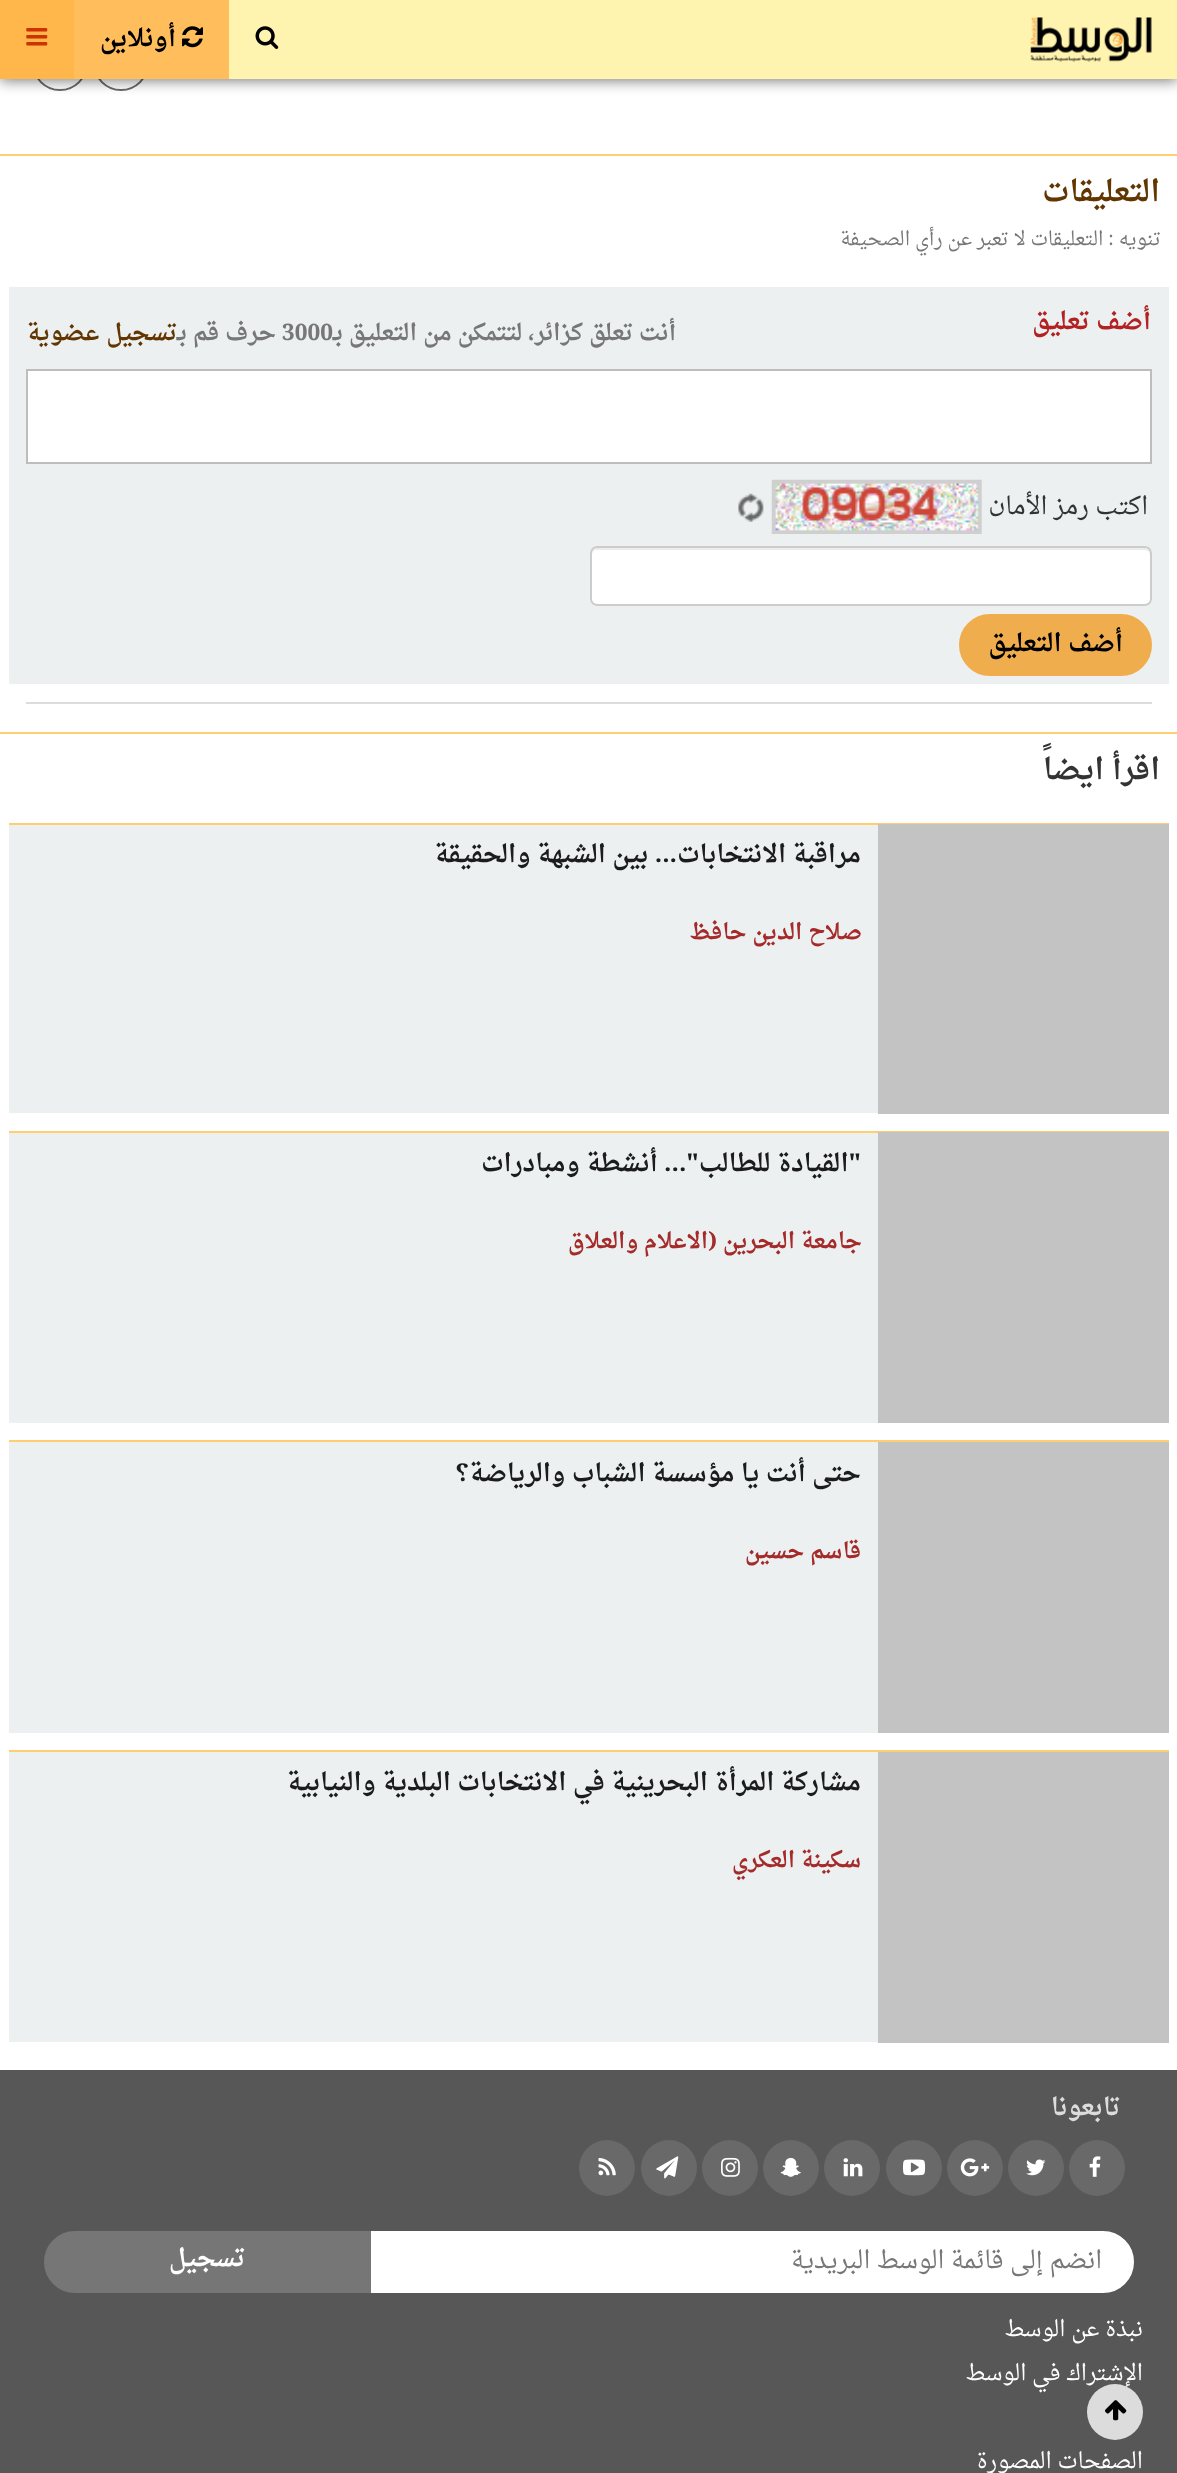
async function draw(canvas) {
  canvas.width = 1177;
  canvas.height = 2473;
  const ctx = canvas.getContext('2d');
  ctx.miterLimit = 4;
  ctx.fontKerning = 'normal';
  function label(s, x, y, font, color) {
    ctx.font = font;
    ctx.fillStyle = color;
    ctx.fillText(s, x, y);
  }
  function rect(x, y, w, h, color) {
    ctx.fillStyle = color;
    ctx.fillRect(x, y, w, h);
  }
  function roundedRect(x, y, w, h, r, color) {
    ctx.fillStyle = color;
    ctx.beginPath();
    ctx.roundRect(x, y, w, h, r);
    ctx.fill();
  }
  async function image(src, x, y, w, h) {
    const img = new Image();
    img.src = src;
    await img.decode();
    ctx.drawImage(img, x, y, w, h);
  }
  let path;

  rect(0, 0, 1177, 2473, '#fff');
  ctx.beginPath();
  ctx.roundRect(94, 34, 54, 56, 27);
  ctx.strokeStyle = '#696969';
  ctx.lineWidth = 2;
  ctx.stroke();
  ctx.beginPath();
  ctx.roundRect(33, 34, 54, 56, 27);
  ctx.stroke();
  ctx.fillStyle = '#00000080';
  ctx.filter = 'blur(7px)';
  ctx.beginPath();
  ctx.rect(0, 2, 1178, 79);
  ctx.fill();
  ctx.filter = 'none';
  rect(229, 0, 948, 79, '#fff3b0');
  await image('assets/img1.png', 1030, 17, 122, 45);
  await image('assets/img2.png', 255, 26, 24, 23);
  rect(74, 0, 155, 79, '#ffbe5b');
  await image('assets/img3.png', 182, 26, 21, 22);
  ctx.direction = 'rtl';
  label('أونلاين', 176, 46, 'bold 24.5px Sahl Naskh', '#000');
  rect(0, 0, 74, 79, '#ffb74c');
  await image('assets/img4.png', 26, 28, 22, 18);
  rect(0, 154, 1177, 2, '#ffce71');
  label('التعليقات', 1160, 201, 'bold 29.5px Sahl Naskh', '#623600');
  label('تنويه : التعليقات لا تعبر عن رأي الصحيفة', 1161, 245, '19.1px Sahl Naskh', '#777');
  rect(9, 287, 1160, 397, '#ecf0f1');
  label('أضف تعليق', 1151, 329, 'bold 24.5px Sahl Naskh', '#b22222');
  ctx.direction = 'ltr';
  label('3000', 282, 340, 'bold 22.75px Sahl Naskh', '#777');
  ctx.direction = 'rtl';
  label('أنت تعلق كزائر، لتتمكن من التعليق بـ', 676, 340, 'bold 22.75px Sahl Naskh', '#777');
  label('حرف قم بـ', 276, 340, 'bold 22.75px Sahl Naskh', '#777');
  ctx.wordSpacing = '1px';
  label('تسجيل عضوية', 177, 340, 'bold 22.75px Sahl Naskh', '#623600');
  ctx.fillStyle = '#fff';
  ctx.beginPath();
  ctx.rect(27, 370, 1124, 93);
  ctx.fill();
  ctx.strokeStyle = '#bdbdbd';
  ctx.stroke();
  ctx.wordSpacing = '0px';
  label('اكتب رمز الأمان', 1148, 514, '24.5px Sahl Naskh', '#333');
  await image('assets/img5.png', 771, 479, 211, 55);
  await image('assets/img6.png', 738, 493, 26, 29);
  roundedRect(590, 546, 562, 60, 7, '#fff');
  ctx.fillStyle = '#ececec';
  path = new Path2D('M597 550H1144C1147 550 1150 552 1150 555V553C1150 550 1148 548 1145 548H597C594 548 592 550 592 553V555C592 552 594 550 597 550Z');
  ctx.fill(path);
  ctx.beginPath();
  ctx.roundRect(591, 547, 560, 58, 6);
  ctx.strokeStyle = '#ccc';
  ctx.stroke();
  ctx.fillStyle = '#f0ad4e';
  ctx.beginPath();
  ctx.roundRect(968, 623, 175, 44, 22);
  ctx.fill();
  ctx.strokeStyle = '#f0ad4e';
  ctx.lineWidth = 18;
  ctx.stroke();
  label('أضف التعليق', 1123, 651, 'bold 24.5px Sahl Naskh', '#000');
  rect(26, 702, 1126, 2, '#dcdcdc');
  rect(0, 732, 1177, 2, '#ffce71');
  label('اقرأ ايضاً', 1160, 779, 'bold 29.5px Sahl Naskh', '#333');
  rect(9, 825, 869, 288, '#ecf0f1');
  rect(9, 823, 1160, 2, '#ffce71');
  rect(878, 824, 291, 290, '#c3c3c3');
  label('مراقبة الانتخابات... بين الشبهة والحقيقة', 861, 862, 'bold 24.5px Sahl Naskh', '#1c1c1c');
  label('صلاح الدين حافظ', 862, 939, 'bold 22px Sahl Naskh', '#a52a2a');
  rect(9, 1133, 869, 290, '#ecf0f1');
  rect(9, 1131, 1160, 2, '#ffce71');
  rect(878, 1132, 291, 291, '#c3c3c3');
  label('"القيادة للطالب"... أنشطة ومبادرات', 861, 1171, 'bold 24.5px Sahl Naskh', '#1c1c1c');
  label('جامعة البحرين (الاعلام والعلاق', 862, 1248, 'bold 22px Sahl Naskh', '#a52a2a');
  rect(9, 1442, 869, 291, '#ecf0f1');
  rect(9, 1440, 1160, 2, '#ffce71');
  rect(878, 1442, 291, 291, '#c3c3c3');
  label('حتى أنت يا مؤسسة الشباب والرياضة؟', 861, 1481, 'bold 24.5px Sahl Naskh', '#1c1c1c');
  label('قاسم حسين', 861, 1558, 'bold 22px Sahl Naskh', '#a52a2a');
  rect(9, 1752, 869, 290, '#ecf0f1');
  rect(9, 1750, 1160, 2, '#ffce71');
  rect(878, 1752, 291, 291, '#c3c3c3');
  label('مشاركة المرأة البحرينية في الانتخابات البلدية والنيابية', 861, 1790, 'bold 24.5px Sahl Naskh', '#1c1c1c');
  label('سكينة العكري', 861, 1867, 'bold 22px Sahl Naskh', '#a52a2a');
  rect(0, 2070, 1177, 403, '#575757');
  label('تابعونا', 1120, 2115, 'bold 24.5px Sahl Naskh', '#dcdcdc');
  ctx.fillStyle = '#696969';
  ctx.beginPath();
  ctx.arc(1097, 2168, 28, 0, 2 * Math.PI);
  ctx.fill();
  await image('assets/img7.png', 1089, 2156, 12, 21);
  ctx.beginPath();
  ctx.arc(1036, 2168, 28, 0, 2 * Math.PI);
  ctx.fill();
  await image('assets/img8.png', 1026, 2159, 20, 17);
  ctx.beginPath();
  ctx.arc(975, 2168, 28, 0, 2 * Math.PI);
  ctx.fill();
  await image('assets/img9.png', 960, 2158, 30, 19);
  ctx.beginPath();
  ctx.arc(914, 2168, 28, 0, 2 * Math.PI);
  ctx.fill();
  await image('assets/img10.png', 903, 2159, 23, 17);
  ctx.beginPath();
  ctx.arc(852, 2168, 28, 0, 2 * Math.PI);
  ctx.fill();
  await image('assets/img11.png', 843, 2158, 20, 19);
  ctx.beginPath();
  ctx.arc(791, 2168, 28, 0, 2 * Math.PI);
  ctx.fill();
  await image('assets/img12.png', 780, 2157, 21, 20);
  ctx.beginPath();
  ctx.arc(730, 2168, 28, 0, 2 * Math.PI);
  ctx.fill();
  await image('assets/img13.png', 721, 2157, 19, 20);
  ctx.beginPath();
  ctx.arc(669, 2168, 28, 0, 2 * Math.PI);
  ctx.fill();
  await image('assets/img14.png', 656, 2156, 23, 23);
  ctx.beginPath();
  ctx.arc(607, 2168, 28, 0, 2 * Math.PI);
  ctx.fill();
  await image('assets/img15.png', 598, 2157, 18, 19);
  ctx.fillStyle = '#fff';
  ctx.beginPath();
  ctx.roundRect(372, 2232, 761, 60, [0, 30, 30, 0]);
  ctx.fill();
  ctx.strokeStyle = '#fff';
  ctx.lineWidth = 2;
  ctx.stroke();
  label('انضم إلى قائمة الوسط البريدية', 1102, 2268, '24.5px Sahl Naskh', '#777');
  ctx.fillStyle = '#767676';
  ctx.beginPath();
  ctx.roundRect(45, 2232, 325, 60, [30, 0, 0, 30]);
  ctx.fill();
  ctx.strokeStyle = '#767676';
  ctx.stroke();
  label('تسجيل', 245, 2266, 'bold 24.5px Sahl Naskh', '#fff');
  label('نبذة عن الوسط', 1143, 2336, '22px Sahl Naskh', '#fff');
  label('الإشتراك في الوسط', 1143, 2380, '22px Sahl Naskh', '#fff');
  label('الصفحات المصورة', 1143, 2468, '22px Sahl Naskh', '#fff');
  ctx.fillStyle = '#dcdcdc';
  ctx.beginPath();
  ctx.arc(1115, 2412, 28, 0, 2 * Math.PI);
  ctx.fill();
  await image('assets/img16.png', 1105, 2400, 22, 21);
}

draw(document.querySelector('canvas'));
